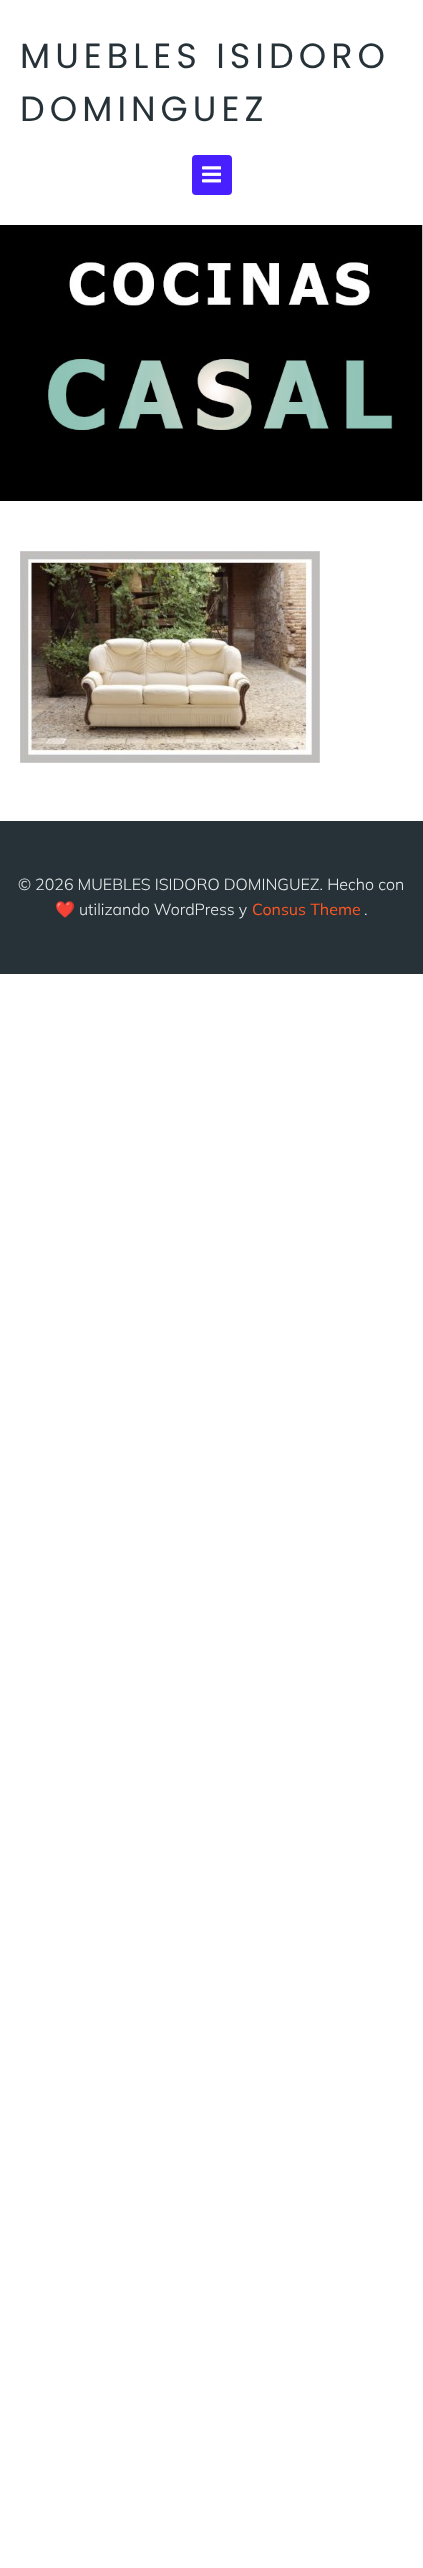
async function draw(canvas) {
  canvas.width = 423;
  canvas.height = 2568;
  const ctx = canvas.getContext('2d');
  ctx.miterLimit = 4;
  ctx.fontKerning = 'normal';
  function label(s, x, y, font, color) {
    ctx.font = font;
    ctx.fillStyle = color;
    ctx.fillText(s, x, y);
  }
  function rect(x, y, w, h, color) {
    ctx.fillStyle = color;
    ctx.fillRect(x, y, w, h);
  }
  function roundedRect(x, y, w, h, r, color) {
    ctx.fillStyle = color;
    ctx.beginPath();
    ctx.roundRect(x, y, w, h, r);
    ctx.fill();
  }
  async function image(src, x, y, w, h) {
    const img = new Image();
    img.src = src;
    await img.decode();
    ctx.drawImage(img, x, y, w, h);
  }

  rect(0, 0, 423, 2568, '#fff');
  ctx.letterSpacing = '5px';
  label('MUEBLES ISIDORO', 20, 68, '35px Poppins', '#263238');
  label('DOMINGUEZ', 20, 121, '35px Poppins', '#263238');
  roundedRect(192, 155, 40, 40, 4, '#481fff');
  await image('assets/img1.png', 202, 166, 19, 17);
  rect(0, 225, 48, 276, '#000');
  await image('assets/img2.png', 48, 225, 375, 276);
  await image('assets/img3.png', 20, 551, 300, 212);
  rect(0, 821, 423, 153, '#263238');
  ctx.letterSpacing = '0px';
  label('© 2026 MUEBLES ISIDORO DOMINGUEZ. Hecho con', 18, 890, '300 16px Mulish', '#eceff1');
  label('❤️', 55, 915, '16px Noto Color Emoji', '#eceff1');
  label('utilizando WordPress y', 79, 915, '300 16px Mulish', '#eceff1');
  label('Consus Theme', 252, 915, '16px Mulish', '#ff5722');
  label('.', 364, 915, '300 16px Mulish', '#eceff1');
}

draw(document.querySelector('canvas'));
